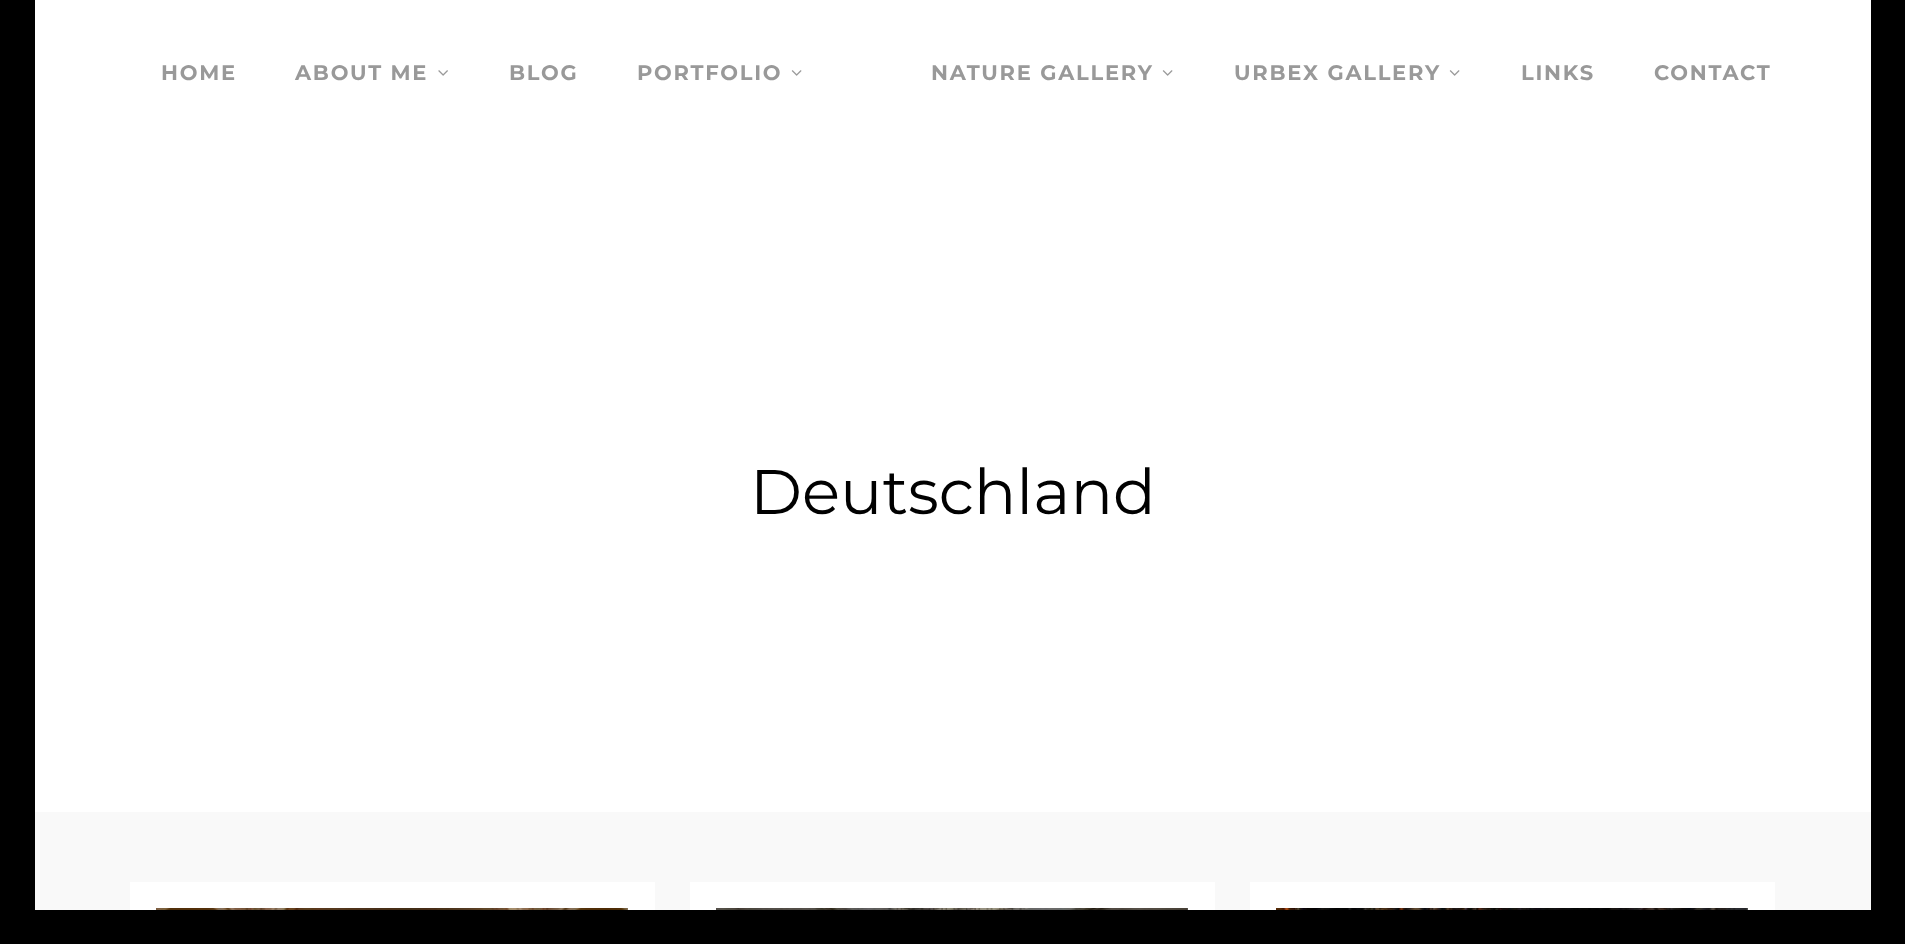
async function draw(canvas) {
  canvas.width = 1905;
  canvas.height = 944;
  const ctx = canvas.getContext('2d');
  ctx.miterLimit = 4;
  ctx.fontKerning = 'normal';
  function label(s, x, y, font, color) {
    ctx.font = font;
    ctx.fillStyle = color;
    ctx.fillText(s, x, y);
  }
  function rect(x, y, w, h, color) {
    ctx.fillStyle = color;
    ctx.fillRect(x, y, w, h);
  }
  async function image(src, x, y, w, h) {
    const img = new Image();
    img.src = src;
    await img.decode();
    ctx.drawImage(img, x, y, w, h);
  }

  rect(0, 0, 1905, 944, '#fff');
  rect(0, 0, 1905, 35, '#000');
  rect(0, 35, 35, 909, '#000');
  rect(35, 0, 1836, 35, '#fff');
  ctx.letterSpacing = '1.75px';
  label('HOME', 161, 80, 'bold 21px Montserrat', '#999');
  label('ABOUT ME', 295, 80, 'bold 21px Montserrat', '#999');
  await image('assets/img1.png', 438, 70, 10, 6);
  label('BLOG', 509, 80, 'bold 21px Montserrat', '#999');
  label('PORTFOLIO', 637, 80, 'bold 21px Montserrat', '#999');
  await image('assets/img2.png', 791, 70, 11, 6);
  label('NATURE GALLERY', 931, 80, 'bold 21px Montserrat', '#999');
  await image('assets/img2.png', 1162, 70, 11, 6);
  label('URBEX GALLERY', 1234, 80, 'bold 21px Montserrat', '#999');
  await image('assets/img2.png', 1449, 70, 11, 6);
  label('LINKS', 1521, 80, 'bold 21px Montserrat', '#999');
  label('CONTACT', 1654, 80, 'bold 21px Montserrat', '#999');
  ctx.letterSpacing = '0px';
  label('Deutschland', 750, 514, '63px Montserrat', '#000');
  rect(35, 812, 1836, 98, '#f9f9f9');
  rect(130, 882, 525, 28, '#fff');
  await image('assets/img3.png', 156, 908, 472, 2);
  rect(690, 882, 525, 28, '#fff');
  await image('assets/img4.png', 716, 908, 472, 2);
  rect(1250, 882, 525, 28, '#fff');
  await image('assets/img5.png', 1276, 908, 472, 2);
  rect(1871, 35, 34, 909, '#000');
  rect(35, 910, 1836, 34, '#000');
}

draw(document.querySelector('canvas'));
